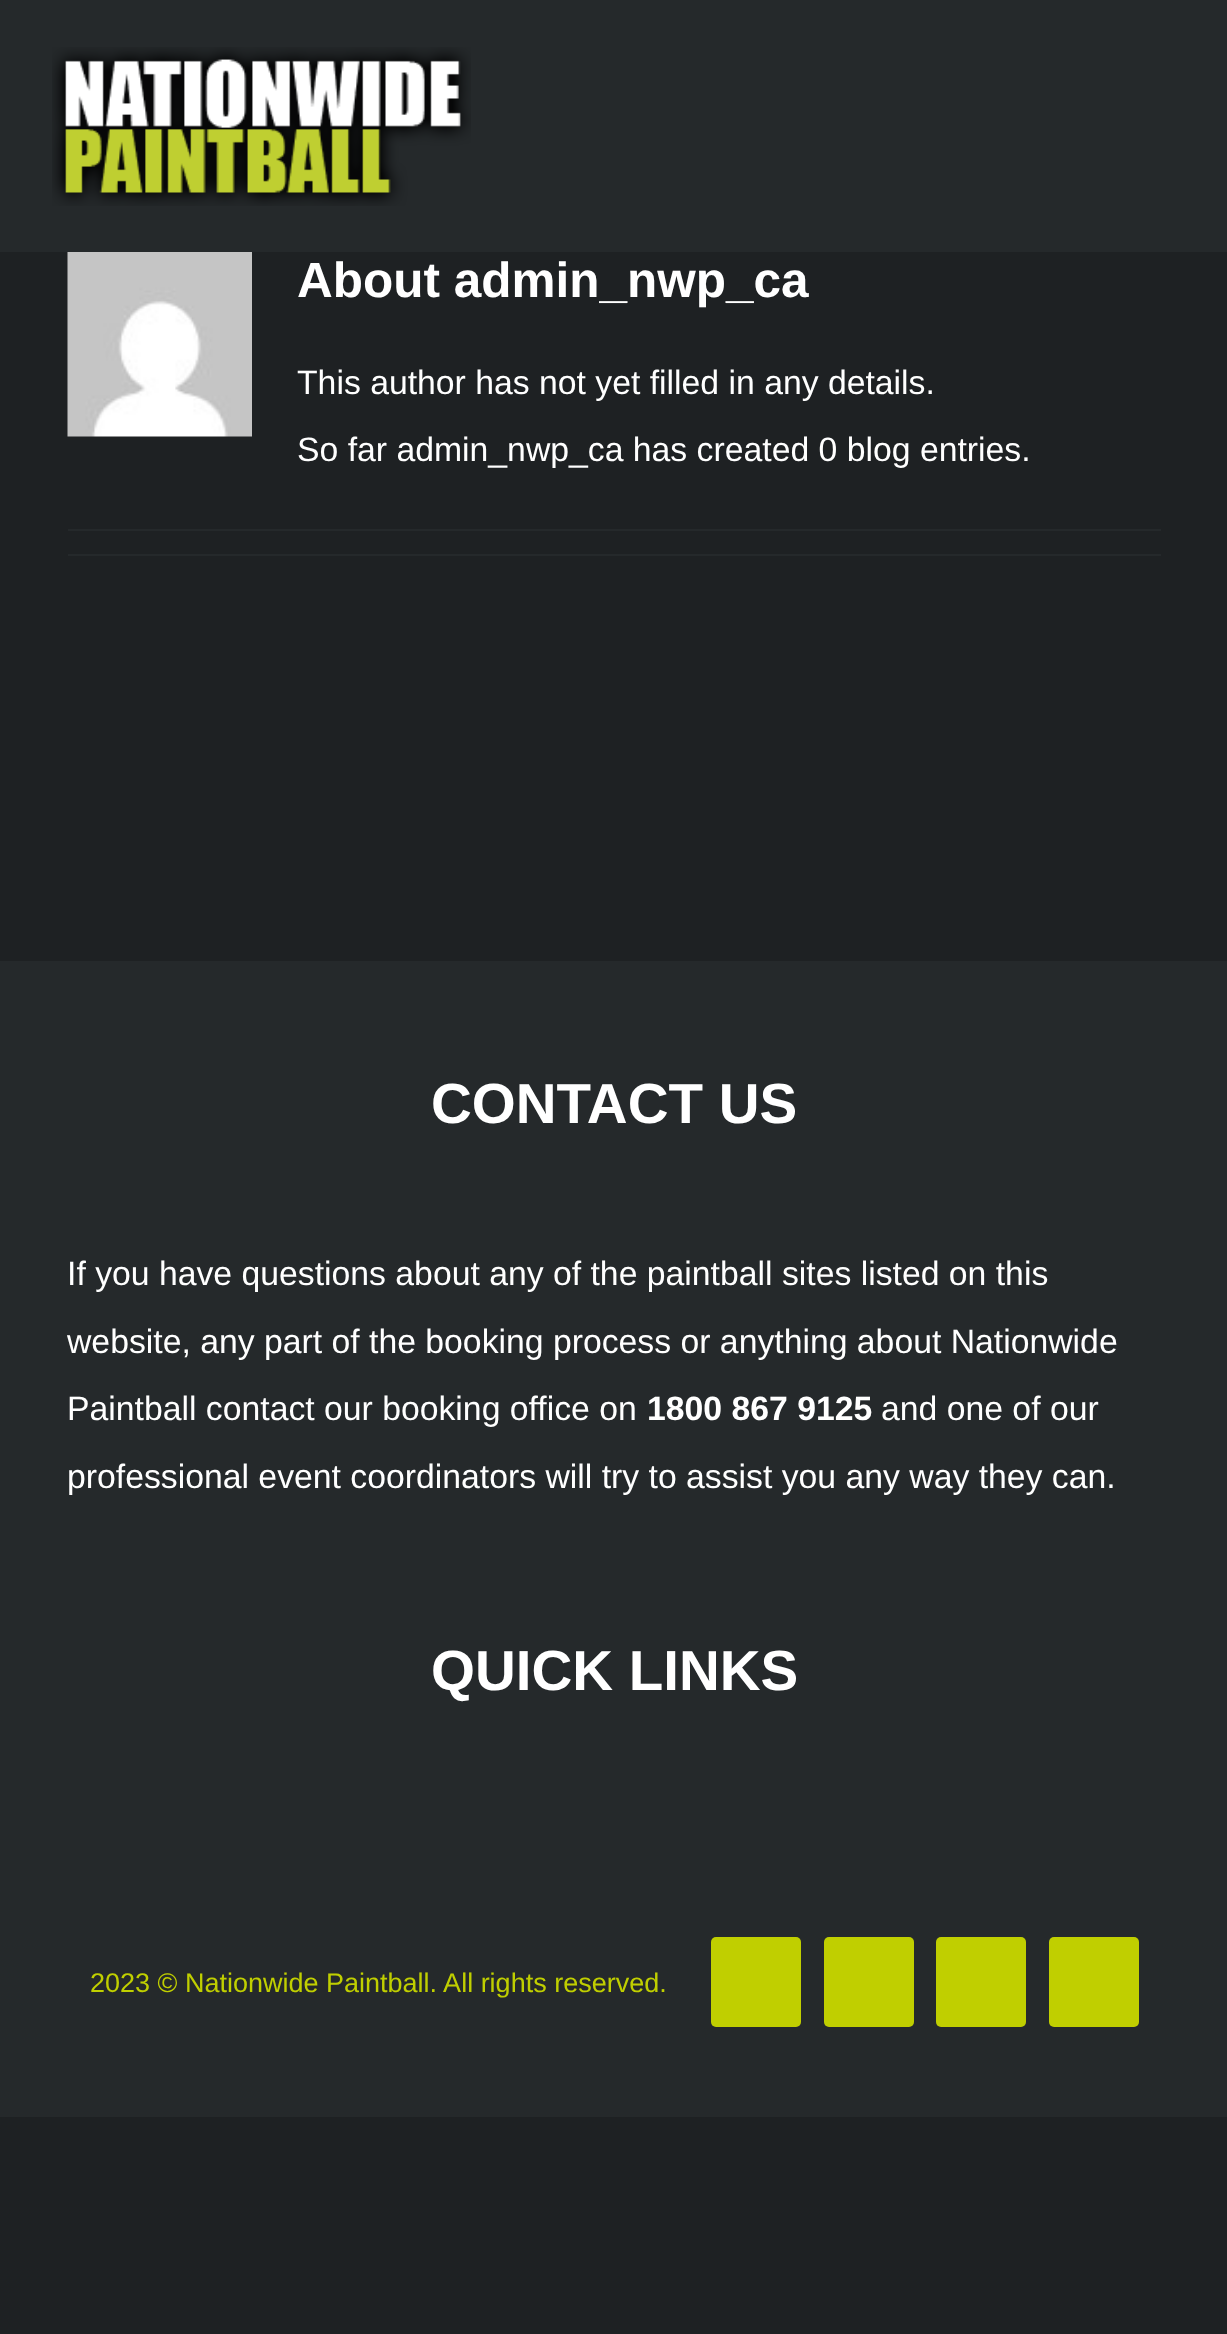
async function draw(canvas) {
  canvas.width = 1227;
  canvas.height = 2334;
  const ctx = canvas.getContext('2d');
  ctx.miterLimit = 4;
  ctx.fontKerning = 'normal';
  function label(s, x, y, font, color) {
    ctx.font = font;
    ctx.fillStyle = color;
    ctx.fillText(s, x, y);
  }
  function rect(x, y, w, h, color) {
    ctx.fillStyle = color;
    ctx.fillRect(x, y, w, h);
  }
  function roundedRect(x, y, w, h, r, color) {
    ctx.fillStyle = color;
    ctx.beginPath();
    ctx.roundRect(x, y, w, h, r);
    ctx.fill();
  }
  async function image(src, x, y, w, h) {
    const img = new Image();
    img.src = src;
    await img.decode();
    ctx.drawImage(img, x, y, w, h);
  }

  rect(0, 0, 1227, 2334, '#1e2123');
  rect(0, 0, 1227, 252, '#25292b');
  await image('assets/img1.png', 52, 47, 419, 159);
  await image('assets/img2.png', 67, 252, 185, 185);
  label('About admin_nwp_ca', 297, 297, 'bold 49.5px Liberation Sans', '#fff');
  label('This author has not yet filled in any details.', 297, 394, '33.75px Liberation Sans', '#fff');
  label('So far admin_nwp_ca has created 0 blog entries.', 297, 461, '33.75px Liberation Sans', '#fff');
  rect(68, 529, 1093, 2, '#25292b');
  rect(68, 554, 1093, 2, '#25292b');
  rect(0, 961, 1227, 1156, '#25292b');
  label('CONTACT US', 431, 1123, 'bold 56.5px Liberation Sans', '#fff');
  label('If you have questions about any of the paintball sites listed on this', 67, 1285, '33.75px Liberation Sans', '#fff');
  label('website, any part of the booking process or anything about Nationwide', 67, 1353, '33.75px Liberation Sans', '#fff');
  label('Paintball contact our booking office on', 67, 1420, '33.75px Liberation Sans', '#fff');
  label('1800 867 9125', 647, 1420, 'bold 33.75px Liberation Sans', '#fff');
  label('and one of our', 881, 1420, '33.75px Liberation Sans', '#fff');
  label('professional event coordinators will try to assist you any way they can.', 67, 1488, '33.75px Liberation Sans', '#fff');
  label('QUICK LINKS', 431, 1690, 'bold 56.5px Liberation Sans', '#fff');
  label('2023 © Nationwide Paintball. All rights reserved.', 90, 1992, '27px Liberation Sans', '#c0cf00');
  roundedRect(711, 1937, 90, 90, 5, '#c0cf00');
  roundedRect(824, 1937, 90, 90, 5, '#c0cf00');
  roundedRect(936, 1937, 90, 90, 5, '#c0cf00');
  roundedRect(1049, 1937, 90, 90, 5, '#c0cf00');
}

draw(document.querySelector('canvas'));
